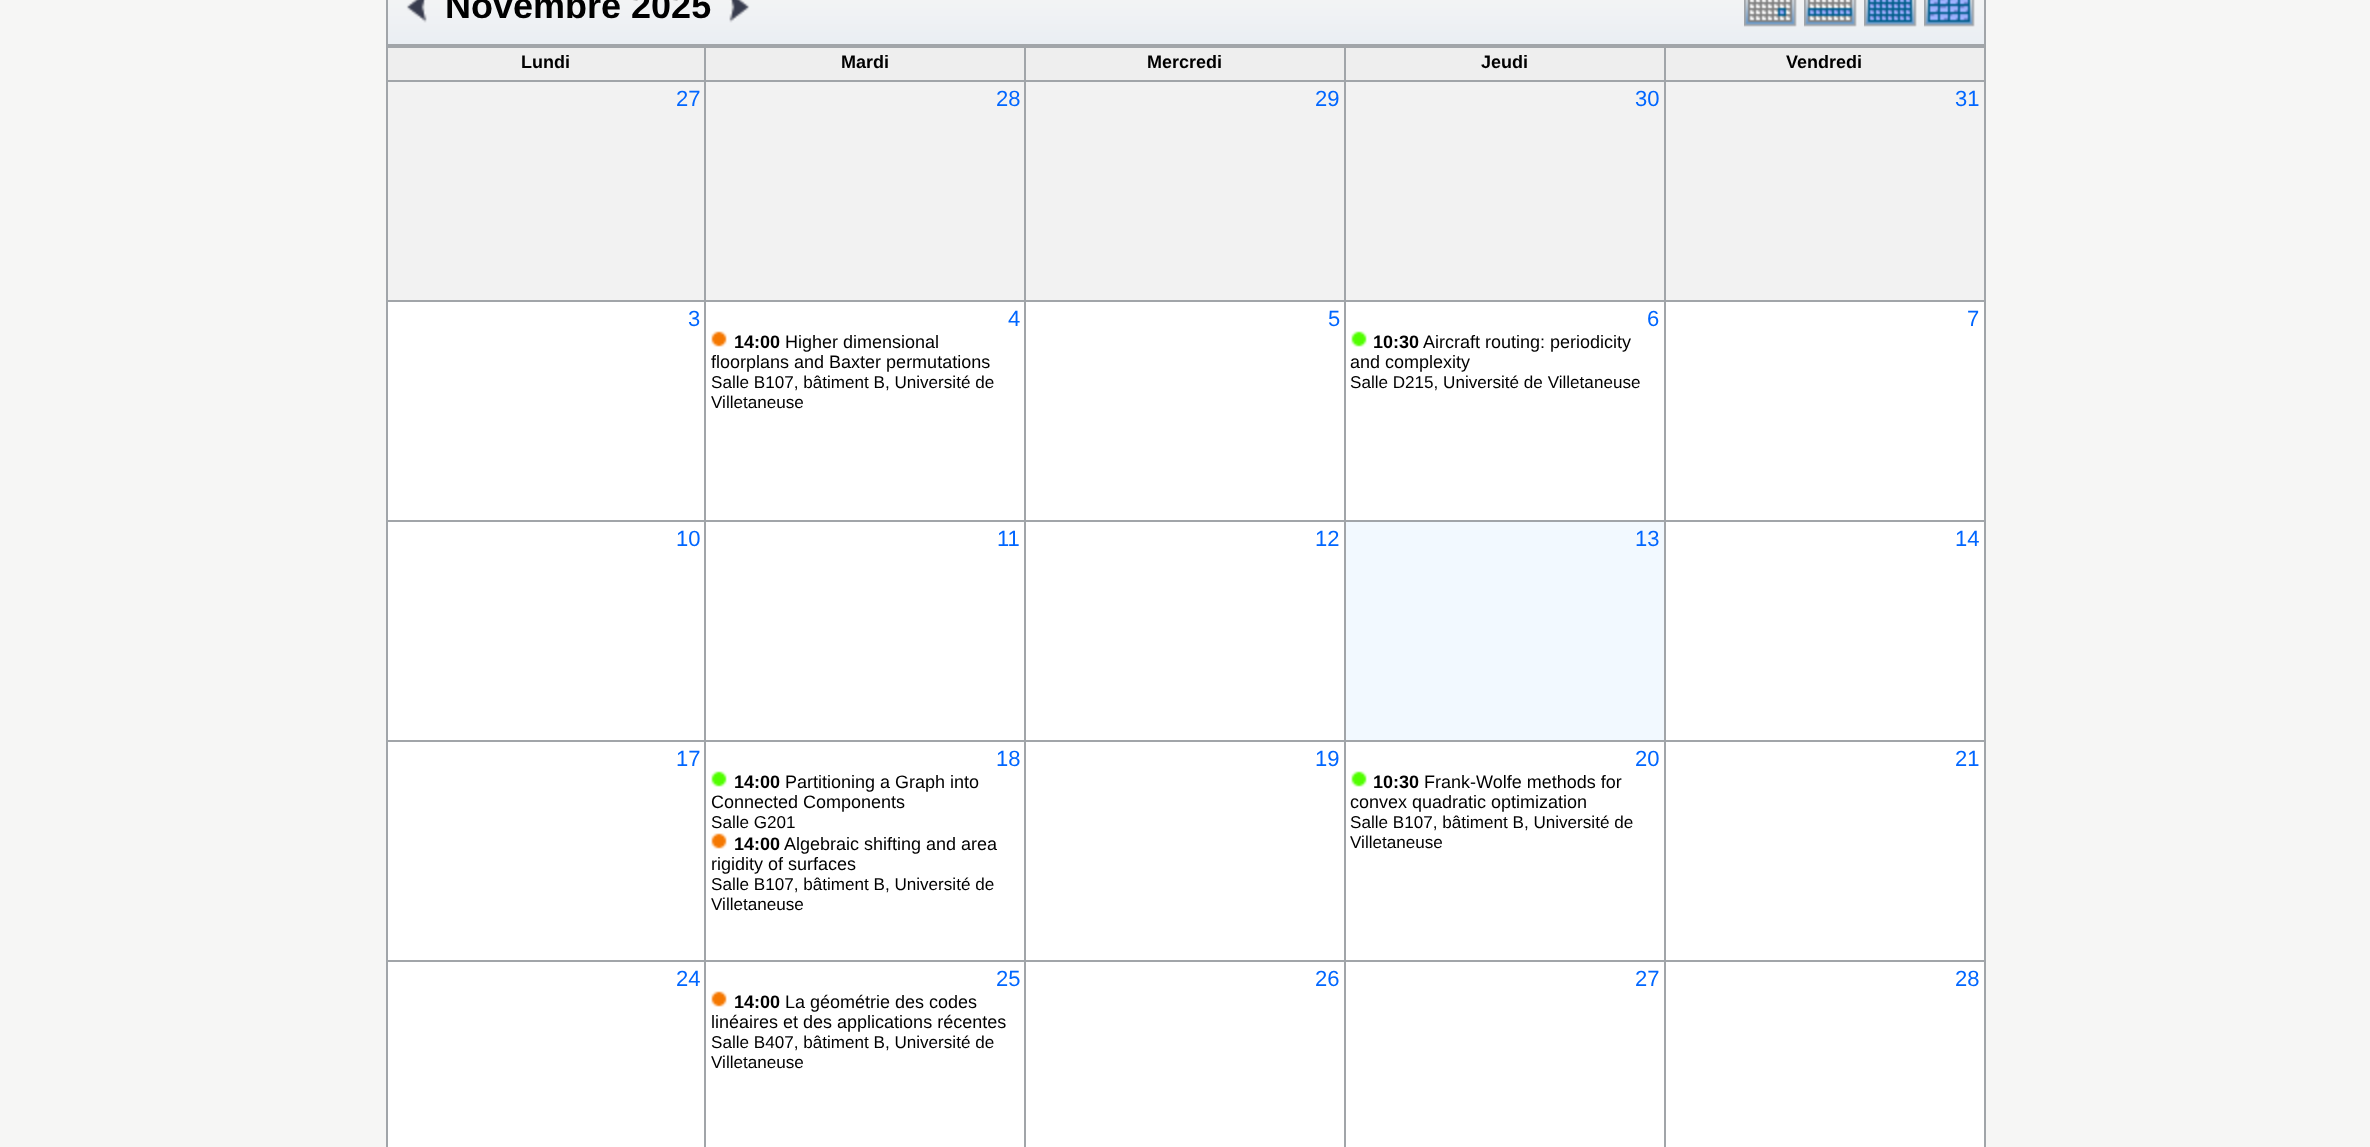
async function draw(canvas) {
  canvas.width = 2370;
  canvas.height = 1147;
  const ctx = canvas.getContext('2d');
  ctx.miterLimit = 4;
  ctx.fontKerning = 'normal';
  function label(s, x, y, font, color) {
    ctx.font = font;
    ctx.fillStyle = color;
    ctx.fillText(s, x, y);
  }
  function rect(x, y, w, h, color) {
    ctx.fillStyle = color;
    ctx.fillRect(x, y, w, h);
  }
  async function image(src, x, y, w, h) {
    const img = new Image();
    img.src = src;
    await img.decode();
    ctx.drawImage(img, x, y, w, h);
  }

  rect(0, 0, 2370, 1147, '#f6f6f5');
  ctx.strokeStyle = '#a1a5a9';
  ctx.lineWidth = 2;
  ctx.strokeRect(387, -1, 1598, 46);
  await image('assets/img1.png', 388, 0, 1356, 44);
  await image('assets/img2.png', 406, 0, 21, 23);
  label('Novembre 2025', 445, 18, 'bold 36px Liberation Sans', '#000');
  await image('assets/img3.png', 729, 0, 21, 23);
  await image('assets/img4.png', 1744, 0, 240, 44);
  await image('assets/img5.png', 1744, 0, 53, 27);
  await image('assets/img6.png', 1804, 0, 53, 27);
  await image('assets/img7.png', 1864, 0, 53, 27);
  await image('assets/img8.png', 1924, 0, 51, 27);
  rect(386, 46, 1600, 1101, '#a1a5a9');
  rect(388, 48, 316, 32, '#eee');
  label('Lundi', 521, 68, 'bold 18px Liberation Sans', '#000');
  rect(706, 48, 318, 32, '#eee');
  label('Mardi', 841, 68, 'bold 18px Liberation Sans', '#000');
  rect(1026, 48, 318, 32, '#eee');
  label('Mercredi', 1147, 68, 'bold 18px Liberation Sans', '#000');
  rect(1346, 48, 318, 32, '#eee');
  label('Jeudi', 1481, 68, 'bold 18px Liberation Sans', '#000');
  rect(1666, 48, 318, 32, '#eee');
  label('Vendredi', 1786, 68, 'bold 18px Liberation Sans', '#000');
  rect(388, 82, 316, 218, '#f2f2f2');
  label('27', 676, 106, '22px Liberation Sans', '#06f');
  rect(706, 82, 318, 218, '#f2f2f2');
  label('28', 996, 106, '22px Liberation Sans', '#06f');
  rect(1026, 82, 318, 218, '#f2f2f2');
  label('29', 1315, 106, '22px Liberation Sans', '#06f');
  rect(1346, 82, 318, 218, '#f2f2f2');
  label('30', 1635, 106, '22px Liberation Sans', '#06f');
  rect(1666, 82, 318, 218, '#f2f2f2');
  label('31', 1955, 106, '22px Liberation Sans', '#06f');
  rect(388, 302, 316, 218, '#fff');
  label('3', 688, 326, '22px Liberation Sans', '#06f');
  rect(706, 302, 318, 218, '#fff');
  label('4', 1008, 326, '22px Liberation Sans', '#06f');
  await image('assets/img9.png', 711, 331, 16, 16);
  label('14:00', 734, 348, 'bold 18px Liberation Sans', '#000');
  label('Higher dimensional', 785, 348, '18px Liberation Sans', '#000');
  label('floorplans and Baxter permutations', 711, 368, '18px Liberation Sans', '#000');
  label('Salle B107, bâtiment B, Université de', 711, 388, '17.1px Liberation Sans', '#000');
  label('Villetaneuse', 711, 408, '17.1px Liberation Sans', '#000');
  rect(1026, 302, 318, 218, '#fff');
  label('5', 1328, 326, '22px Liberation Sans', '#06f');
  rect(1346, 302, 318, 218, '#fff');
  label('6', 1647, 326, '22px Liberation Sans', '#06f');
  await image('assets/img10.png', 1351, 331, 16, 16);
  label('10:30', 1373, 348, 'bold 18px Liberation Sans', '#000');
  label('Aircraft routing: periodicity', 1423, 348, '18px Liberation Sans', '#000');
  label('and complexity', 1350, 368, '18px Liberation Sans', '#000');
  label('Salle D215, Université de Villetaneuse', 1350, 388, '17.1px Liberation Sans', '#000');
  rect(1666, 302, 318, 218, '#fff');
  label('7', 1967, 326, '22px Liberation Sans', '#06f');
  rect(388, 522, 316, 218, '#fff');
  label('10', 676, 546, '22px Liberation Sans', '#06f');
  rect(706, 522, 318, 218, '#fff');
  label('11', 997, 546, '22px Liberation Sans', '#06f');
  rect(1026, 522, 318, 218, '#fff');
  label('12', 1315, 546, '22px Liberation Sans', '#06f');
  rect(1346, 522, 318, 218, '#f2f9ff');
  label('13', 1635, 546, '22px Liberation Sans', '#06f');
  rect(1666, 522, 318, 218, '#fff');
  label('14', 1955, 546, '22px Liberation Sans', '#06f');
  rect(388, 742, 316, 218, '#fff');
  label('17', 676, 766, '22px Liberation Sans', '#06f');
  rect(706, 742, 318, 218, '#fff');
  label('18', 996, 766, '22px Liberation Sans', '#06f');
  await image('assets/img10.png', 711, 771, 16, 16);
  label('14:00', 734, 788, 'bold 18px Liberation Sans', '#000');
  label('Partitioning a Graph into', 785, 788, '18px Liberation Sans', '#000');
  label('Connected Components', 711, 808, '18px Liberation Sans', '#000');
  label('Salle G201', 711, 828, '17.1px Liberation Sans', '#000');
  await image('assets/img9.png', 711, 833, 16, 16);
  label('14:00', 734, 850, 'bold 18px Liberation Sans', '#000');
  label('Algebraic shifting and area', 784, 850, '18px Liberation Sans', '#000');
  label('rigidity of surfaces', 711, 870, '18px Liberation Sans', '#000');
  label('Salle B107, bâtiment B, Université de', 711, 890, '17.1px Liberation Sans', '#000');
  label('Villetaneuse', 711, 910, '17.1px Liberation Sans', '#000');
  rect(1026, 742, 318, 218, '#fff');
  label('19', 1315, 766, '22px Liberation Sans', '#06f');
  rect(1346, 742, 318, 218, '#fff');
  label('20', 1635, 766, '22px Liberation Sans', '#06f');
  await image('assets/img10.png', 1351, 771, 16, 16);
  label('10:30', 1373, 788, 'bold 18px Liberation Sans', '#000');
  label('Frank-Wolfe methods for', 1424, 788, '18px Liberation Sans', '#000');
  label('convex quadratic optimization', 1350, 808, '18px Liberation Sans', '#000');
  label('Salle B107, bâtiment B, Université de', 1350, 828, '17.1px Liberation Sans', '#000');
  label('Villetaneuse', 1350, 848, '17.1px Liberation Sans', '#000');
  rect(1666, 742, 318, 218, '#fff');
  label('21', 1955, 766, '22px Liberation Sans', '#06f');
  rect(388, 962, 316, 185, '#fff');
  label('24', 676, 986, '22px Liberation Sans', '#06f');
  rect(706, 962, 318, 185, '#fff');
  label('25', 996, 986, '22px Liberation Sans', '#06f');
  await image('assets/img9.png', 711, 991, 16, 16);
  label('14:00', 734, 1008, 'bold 18px Liberation Sans', '#000');
  label('La géométrie des codes', 785, 1008, '18px Liberation Sans', '#000');
  label('linéaires et des applications récentes', 711, 1028, '18px Liberation Sans', '#000');
  label('Salle B407, bâtiment B, Université de', 711, 1048, '17.1px Liberation Sans', '#000');
  label('Villetaneuse', 711, 1068, '17.1px Liberation Sans', '#000');
  rect(1026, 962, 318, 185, '#fff');
  label('26', 1315, 986, '22px Liberation Sans', '#06f');
  rect(1346, 962, 318, 185, '#fff');
  label('27', 1635, 986, '22px Liberation Sans', '#06f');
  rect(1666, 962, 318, 185, '#fff');
  label('28', 1955, 986, '22px Liberation Sans', '#06f');
}

draw(document.querySelector('canvas'));
